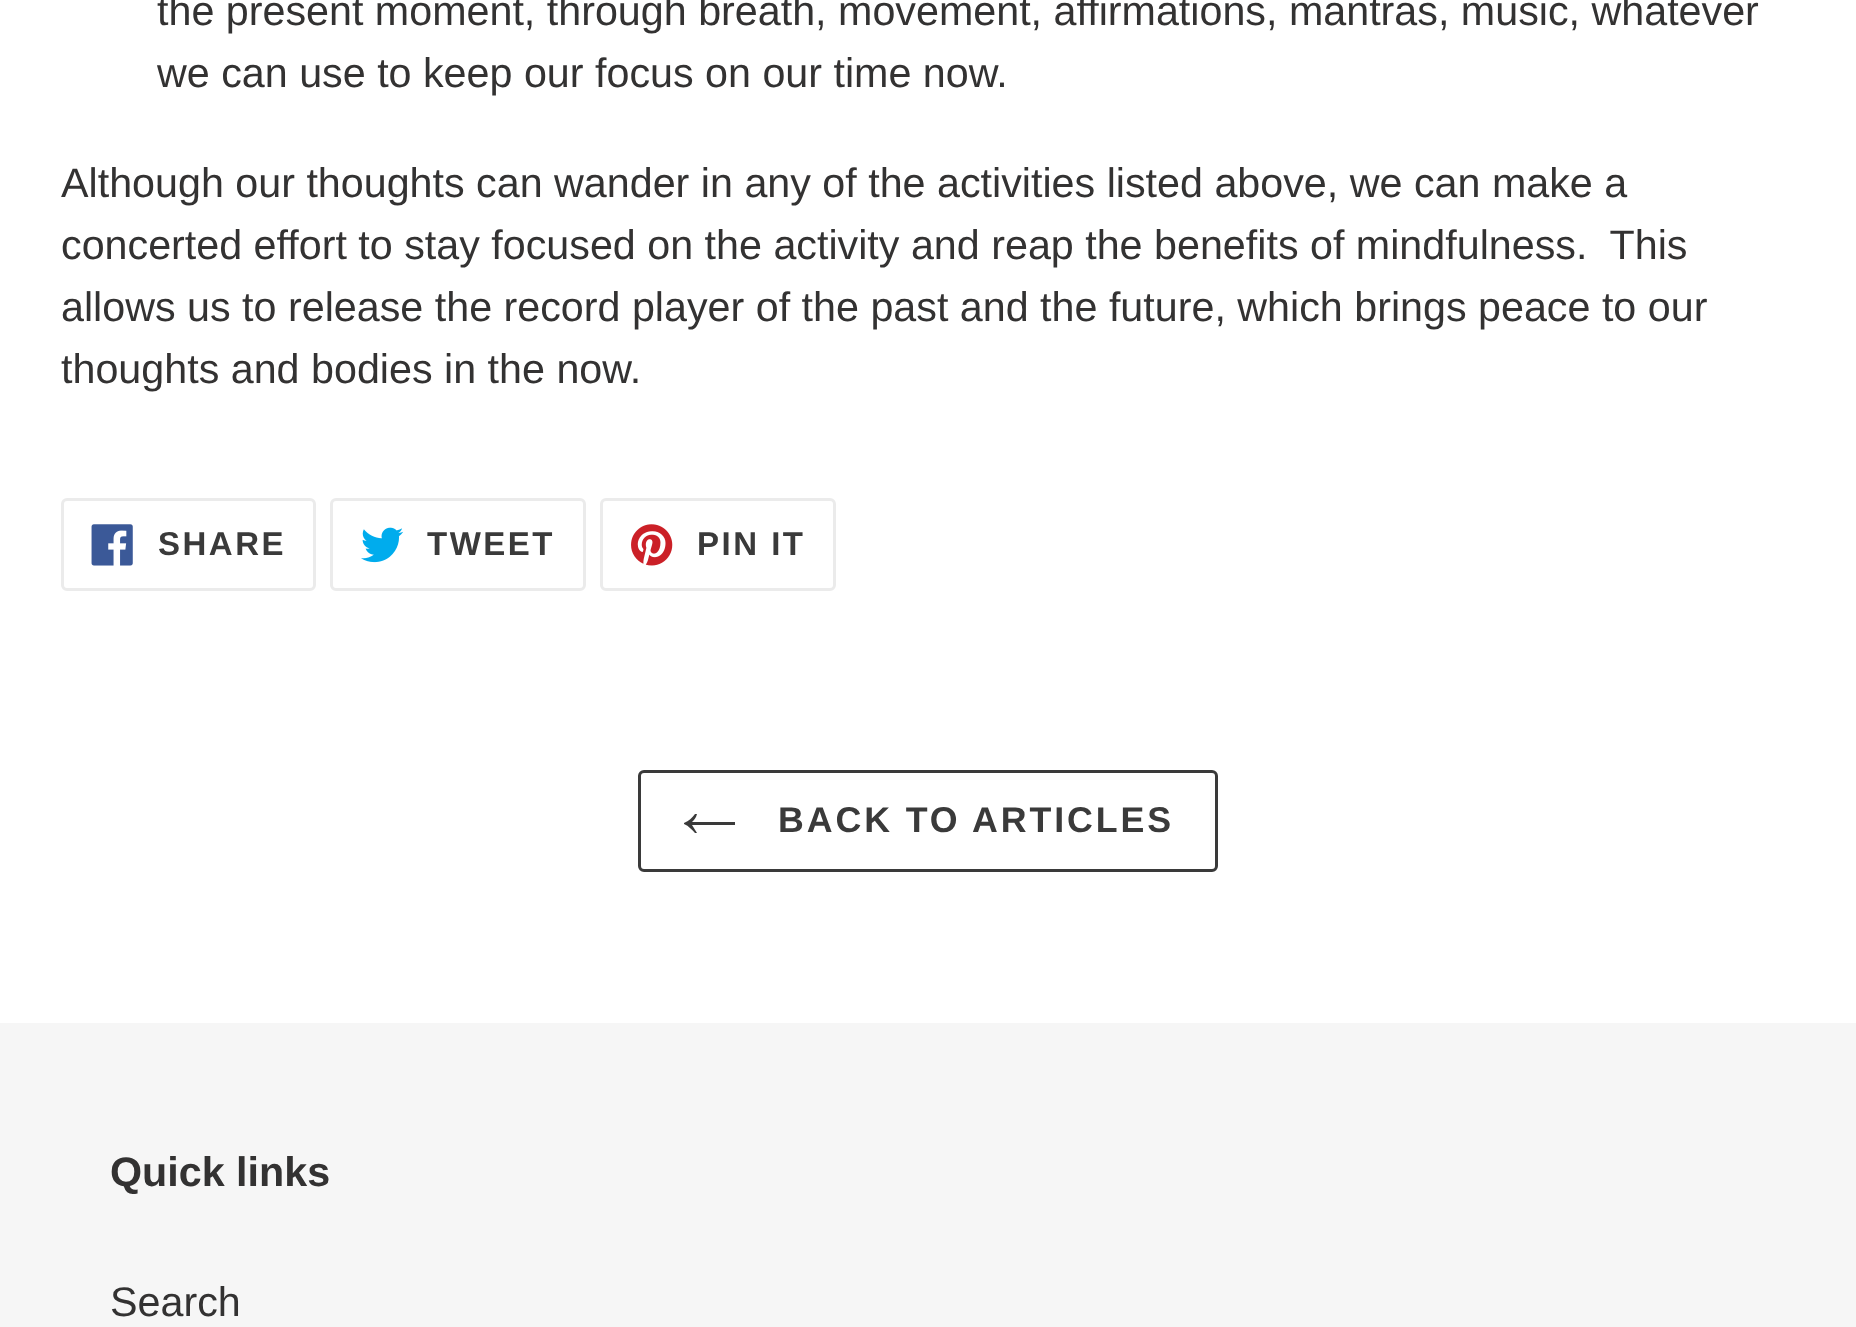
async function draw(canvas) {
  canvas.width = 1856;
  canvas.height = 1327;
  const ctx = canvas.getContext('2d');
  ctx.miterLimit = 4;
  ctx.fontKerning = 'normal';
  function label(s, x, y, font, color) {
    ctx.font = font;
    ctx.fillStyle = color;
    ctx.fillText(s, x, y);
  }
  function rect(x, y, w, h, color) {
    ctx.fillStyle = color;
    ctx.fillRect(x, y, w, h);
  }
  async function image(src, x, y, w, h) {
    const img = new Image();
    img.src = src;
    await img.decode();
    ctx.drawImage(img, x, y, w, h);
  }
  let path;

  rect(0, 0, 1856, 1327, '#fff');
  label('the present moment, through breath, movement, affirmations, mantras, music, whatever', 157, 25, '41.25px Liberation Sans', '#333232');
  label('we can use to keep our focus on our time now.', 157, 87, '41.25px Liberation Sans', '#333232');
  label('Although our thoughts can wander in any of the activities listed above, we can make a', 61, 197, '41.25px Liberation Sans', '#333232');
  label('concerted effort to stay focused on the activity and reap the benefits of mindfulness.  This', 61, 259, '41.25px Liberation Sans', '#333232');
  label('allows us to release the record player of the past and the future, which brings peace to our', 61, 321, '41.25px Liberation Sans', '#333232');
  label('thoughts and bodies in the now.', 61, 383, '41.25px Liberation Sans', '#333232');
  ctx.beginPath();
  ctx.roundRect(62.5, 499.5, 252, 90, 4.5);
  ctx.strokeStyle = '#ebebeb';
  ctx.lineWidth = 3;
  ctx.stroke();
  await image('assets/img1.png', 91, 524, 42, 42);
  ctx.letterSpacing = '2.5px';
  label('SHARE', 158, 555, 'bold 33px Liberation Sans', '#3a3a3a');
  ctx.beginPath();
  ctx.roundRect(331.5, 499.5, 253, 90, 4.5);
  ctx.stroke();
  await image('assets/img2.png', 361, 527, 43, 36);
  label('TWEET', 427, 555, 'bold 33px Liberation Sans', '#3a3a3a');
  ctx.beginPath();
  ctx.roundRect(601.5, 499.5, 233, 90, 4.5);
  ctx.stroke();
  await image('assets/img3.png', 631, 524, 42, 42);
  label('PIN IT', 697, 555, 'bold 33px Liberation Sans', '#3a3a3a');
  ctx.beginPath();
  ctx.roundRect(639.5, 771.5, 577, 99, 4.5);
  ctx.strokeStyle = '#3a3a3a';
  ctx.stroke();
  path = new Path2D('M695 833C692 830 689 826 684 824V823C689 821 692 818 695 814H697C696 818 694 820 692 822H735V825H692L697 833Z');
  ctx.fill(path, 'evenodd');
  ctx.letterSpacing = '2.9px';
  label('BACK TO ARTICLES', 778, 832, 'bold 35.75px Liberation Sans', '#3a3a3a');
  rect(0, 1023, 1856, 304, '#f6f6f6');
  ctx.letterSpacing = '0px';
  label('Quick links', 110, 1186, 'bold 41.25px Liberation Sans', '#333232');
  label('Search', 110, 1316, '41.25px Liberation Sans', '#333232');
}

draw(document.querySelector('canvas'));
